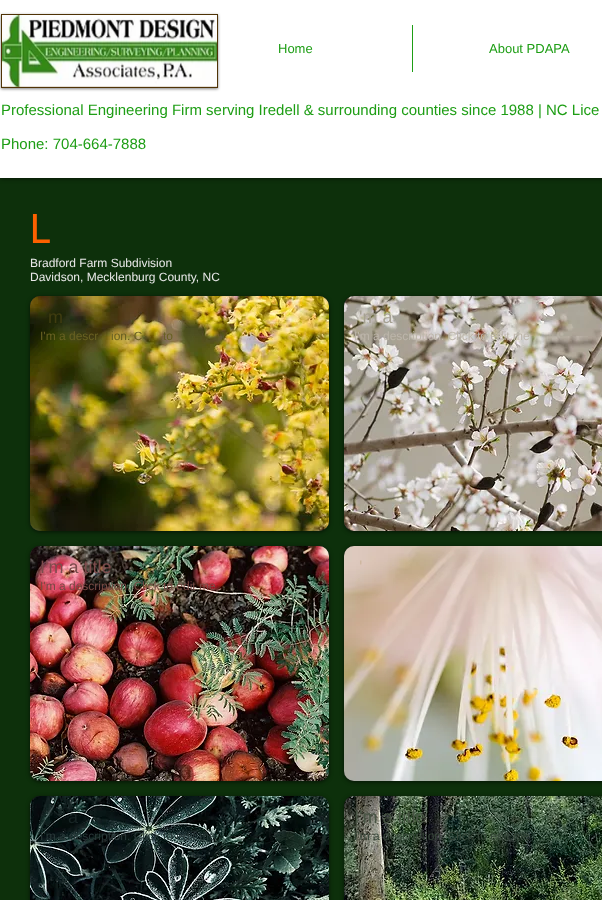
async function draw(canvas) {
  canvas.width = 602;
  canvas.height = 900;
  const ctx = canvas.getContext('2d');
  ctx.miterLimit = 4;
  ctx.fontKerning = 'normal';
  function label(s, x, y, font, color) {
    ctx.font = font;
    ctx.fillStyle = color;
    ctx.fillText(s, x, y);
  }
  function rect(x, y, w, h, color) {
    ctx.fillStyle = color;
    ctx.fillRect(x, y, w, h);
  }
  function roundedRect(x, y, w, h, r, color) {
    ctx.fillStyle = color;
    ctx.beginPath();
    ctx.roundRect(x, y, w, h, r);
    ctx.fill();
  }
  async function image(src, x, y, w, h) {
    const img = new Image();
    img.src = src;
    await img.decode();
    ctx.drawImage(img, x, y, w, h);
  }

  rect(0, 0, 602, 900, '#0d300b');
  ctx.fillStyle = '#000000b3';
  ctx.filter = 'blur(2.5px)';
  ctx.beginPath();
  ctx.rect(0, -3, 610, 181);
  ctx.fill();
  ctx.filter = 'none';
  rect(0, 0, 602, 178, '#fff');
  ctx.fillStyle = '#00000080';
  ctx.filter = 'blur(1.5px)';
  ctx.beginPath();
  ctx.rect(1, 15, 217, 74);
  ctx.fill();
  ctx.filter = 'none';
  rect(1, 14, 217, 74, '#4f3306');
  await image('assets/img1.png', 2, 15, 215, 72);
  label('Home', 278, 53, '13px Liberation Sans', '#1e9e15');
  rect(412, 25, 1, 47, '#1e9e15');
  label('About PDAPA', 489, 53, '13px Liberation Sans', '#1e9e15');
  label('Professional Engineering Firm serving Iredell & surrounding counties since 1988 | NC Lice', 1, 115, '15px Liberation Sans', '#1e9e15');
  label('Phone: 704-664-7888', 1, 149, '15px Liberation Sans', '#1e9e15');
  label('L', 30, 243, '40px tahoma', '#fc6000');
  label('Bradford Farm Subdivision', 30, 267, '12px Liberation Sans', '#e8e8e8');
  label('Davidson, Mecklenburg County, NC', 30, 281, '12px Liberation Sans', '#e8e8e8');
  ctx.fillStyle = '#00000099';
  ctx.filter = 'blur(2px)';
  ctx.beginPath();
  ctx.roundRect(30, 297, 299, 235, 10);
  ctx.fill();
  ctx.filter = 'none';
  roundedRect(30, 296, 299, 235, 10, '#2d2d2d');
  await image('assets/img2.png', 30, 296, 299, 235);
  label('m', 48, 323, '18px Liberation Sans', '#3f3c10');
  label('I\'m a descr', 40, 340, '12px Liberation Sans', '#696123');
  label('ion. C', 111, 340, '12px Liberation Sans', '#696123');
  label('to', 163, 340, '12px Liberation Sans', '#696123');
  ctx.fillStyle = '#00000099';
  ctx.filter = 'blur(2px)';
  ctx.beginPath();
  ctx.roundRect(344, 297, 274, 235, 10);
  ctx.fill();
  ctx.filter = 'none';
  roundedRect(344, 296, 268, 235, 10, '#2d2d2d');
  await image('assets/img3.png', 344, 296, 258, 235);
  label('\'m a', 359, 323, '18px Liberation Sans', '#a6a193');
  label('I\'m a description. Click to edit me', 354, 340, '12px Liberation Sans', '#bdb6ab');
  ctx.fillStyle = '#00000099';
  ctx.filter = 'blur(2px)';
  ctx.beginPath();
  ctx.roundRect(30, 547, 299, 235, 10);
  ctx.fill();
  ctx.filter = 'none';
  roundedRect(30, 546, 299, 235, 10, '#2d2d2d');
  await image('assets/img4.png', 30, 546, 299, 235);
  label('I\'m a title', 40, 573, '18px Liberation Sans', '#7d4c4d');
  label('I\'m a description. Click to edit me', 40, 590, '12px Liberation Sans', '#774a44');
  ctx.fillStyle = '#00000099';
  ctx.filter = 'blur(2px)';
  ctx.beginPath();
  ctx.roundRect(344, 547, 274, 235, 10);
  ctx.fill();
  ctx.filter = 'none';
  roundedRect(344, 546, 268, 235, 10, '#2d2d2d');
  await image('assets/img5.png', 344, 546, 258, 235);
  label('\'', 359, 573, '18px Liberation Sans', '#ceb79f');
  ctx.fillStyle = '#00000099';
  ctx.filter = 'blur(2px)';
  ctx.beginPath();
  ctx.roundRect(30, 797, 299, 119, 10);
  ctx.fill();
  ctx.filter = 'none';
  roundedRect(30, 796, 299, 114, 10, '#2d2d2d');
  await image('assets/img6.png', 30, 796, 299, 104);
  label('a', 68, 823, '18px Liberation Sans', '#172424');
  label('I\'m a description. Click to edit me', 40, 840, '12px Liberation Sans', '#293838');
  ctx.fillStyle = '#00000099';
  ctx.filter = 'blur(2px)';
  ctx.beginPath();
  ctx.roundRect(344, 797, 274, 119, 10);
  ctx.fill();
  ctx.filter = 'none';
  roundedRect(344, 796, 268, 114, 10, '#2d2d2d');
  await image('assets/img7.png', 344, 796, 258, 104);
  label('I\'m a title', 354, 823, '18px Liberation Sans', '#485544');
  label('I\'m a description. Click to edit me', 354, 840, '12px Liberation Sans', '#374639');
}

draw(document.querySelector('canvas'));
